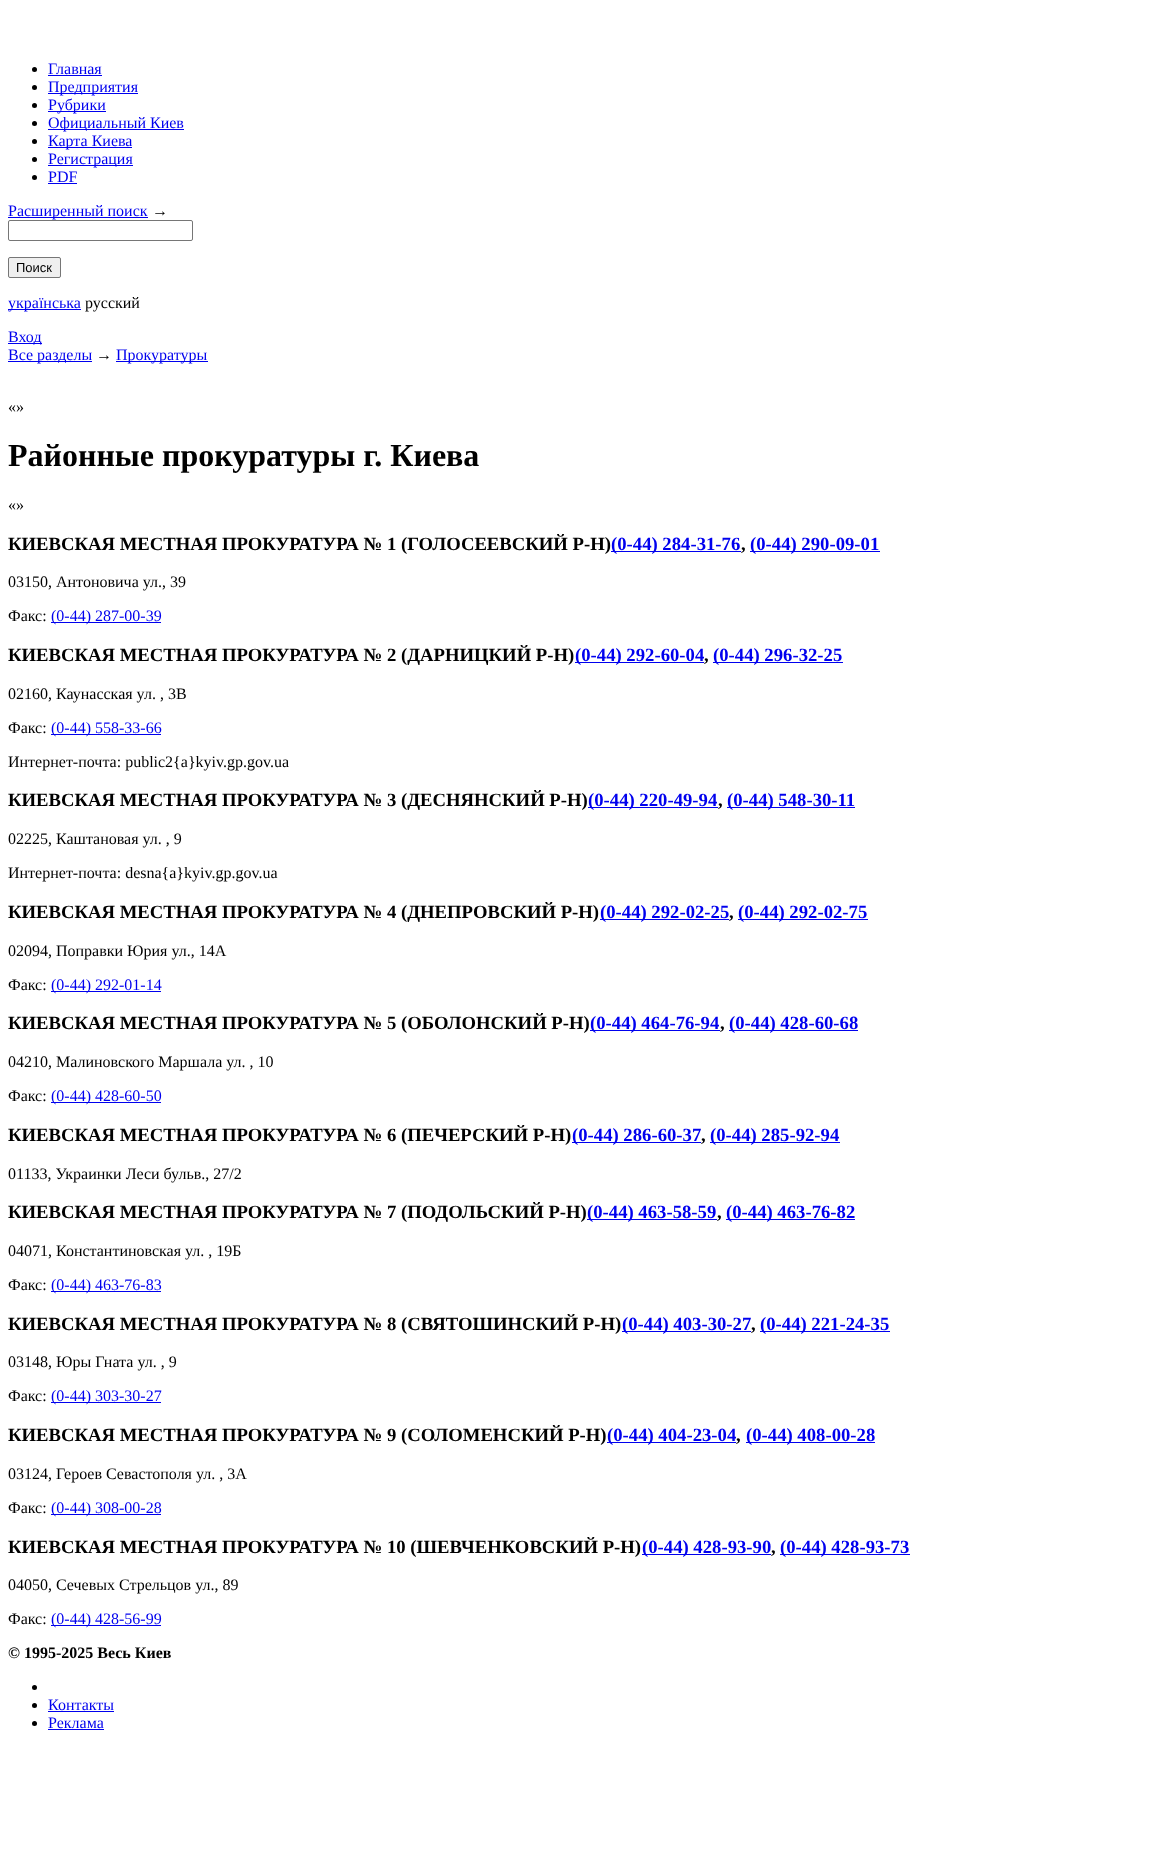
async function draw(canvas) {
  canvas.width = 1169;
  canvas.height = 1871;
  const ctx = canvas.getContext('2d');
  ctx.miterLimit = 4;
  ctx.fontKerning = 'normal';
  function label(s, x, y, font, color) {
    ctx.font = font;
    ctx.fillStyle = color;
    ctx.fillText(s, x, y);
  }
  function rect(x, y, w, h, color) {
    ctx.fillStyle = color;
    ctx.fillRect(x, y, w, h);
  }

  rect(0, 0, 1169, 1871, '#fff');
  ctx.fillStyle = '#000';
  ctx.beginPath();
  ctx.arc(34.5, 69.5, 2.5, 0, 2 * Math.PI);
  ctx.fill();
  label('Главная', 48, 74, '16px Liberation Serif', '#00e');
  rect(48, 75, 54, 1, '#00e');
  ctx.fillStyle = '#000';
  ctx.beginPath();
  ctx.arc(34.5, 87.5, 2.5, 0, 2 * Math.PI);
  ctx.fill();
  rect(48, 93, 90, 1, '#00e');
  label('Предприятия', 48, 92, '16px Liberation Serif', '#00e');
  ctx.fillStyle = '#000';
  ctx.beginPath();
  ctx.arc(34.5, 105.5, 2.5, 0, 2 * Math.PI);
  ctx.fill();
  rect(48, 111, 58, 1, '#00e');
  label('Рубрики', 48, 110, '16px Liberation Serif', '#00e');
  ctx.fillStyle = '#000';
  ctx.beginPath();
  ctx.arc(34.5, 123.5, 2.5, 0, 2 * Math.PI);
  ctx.fill();
  rect(48, 129, 136, 1, '#00e');
  label('Официальный Киев', 48, 128, '16px Liberation Serif', '#00e');
  ctx.fillStyle = '#000';
  ctx.beginPath();
  ctx.arc(34.5, 141.5, 2.5, 0, 2 * Math.PI);
  ctx.fill();
  rect(48, 147, 84, 1, '#00e');
  label('Карта Киева', 48, 146, '16px Liberation Serif', '#00e');
  ctx.fillStyle = '#000';
  ctx.beginPath();
  ctx.arc(34.5, 159.5, 2.5, 0, 2 * Math.PI);
  ctx.fill();
  rect(48, 165, 85, 1, '#00e');
  label('Регистрация', 48, 164, '16px Liberation Serif', '#00e');
  ctx.fillStyle = '#000';
  ctx.beginPath();
  ctx.arc(34.5, 177.5, 2.5, 0, 2 * Math.PI);
  ctx.fill();
  label('PDF', 48, 182, '16px Liberation Serif', '#00e');
  rect(48, 183, 29, 1, '#00e');
  rect(8, 217, 140, 1, '#00e');
  label('Расширенный поиск', 8, 216, '16px Liberation Serif', '#00e');
  label('→', 152, 216, '16px Liberation Serif', '#000');
  ctx.beginPath();
  ctx.roundRect(8.5, 220.5, 184, 20, 1.5);
  ctx.strokeStyle = '#767676';
  ctx.stroke();
  ctx.fillStyle = '#efefef';
  ctx.beginPath();
  ctx.roundRect(8.5, 257.5, 52, 20, 1.5);
  ctx.fill();
  ctx.stroke();
  label('Поиск', 16, 272, '13px Liberation Sans', '#000');
  rect(8, 309, 73, 1, '#00e');
  label('українська', 8, 308, '16px Liberation Serif', '#00e');
  label('русский', 85, 308, '16px Liberation Serif', '#000');
  rect(8, 343, 34, 1, '#00e');
  label('Вход', 8, 342, '16px Liberation Serif', '#00e');
  rect(8, 361, 84, 1, '#00e');
  label('Все разделы', 8, 360, '16px Liberation Serif', '#00e');
  label('→', 96, 360, '16px Liberation Serif', '#000');
  rect(116, 361, 92, 1, '#00e');
  label('Прокуратуры', 116, 360, '16px Liberation Serif', '#00e');
  label('«»', 8, 412, '16px Liberation Serif', '#000');
  label('Районные прокуратуры г. Киева', 8, 466, 'bold 32px Liberation Serif', '#000');
  label('«»', 8, 510, '16px Liberation Serif', '#000');
  label('КИЕВСКАЯ МЕСТНАЯ ПРОКУРАТУРА № 1 (ГОЛОСЕЕВСКИЙ Р-Н)', 8, 550, 'bold 18.7px Liberation Serif', '#000');
  rect(611, 551, 130, 1, '#00e');
  label('(0-44) 284-31-76', 611, 550, 'bold 18.7px Liberation Serif', '#00e');
  label(',', 741, 550, 'bold 18.7px Liberation Serif', '#000');
  rect(750, 551, 130, 1, '#00e');
  label('(0-44) 290-09-01', 750, 550, 'bold 18.7px Liberation Serif', '#00e');
  label('03150, Антоновича ул., 39', 8, 587, '16px Liberation Serif', '#000');
  label('Факс:', 8, 621, '16px Liberation Serif', '#000');
  rect(51, 622, 110, 1, '#00e');
  label('(0-44) 287-00-39', 51, 621, '16px Liberation Serif', '#00e');
  label('КИЕВСКАЯ МЕСТНАЯ ПРОКУРАТУРА № 2 (ДАРНИЦКИЙ Р-Н)', 8, 661, 'bold 18.7px Liberation Serif', '#000');
  rect(575, 662, 129, 1, '#00e');
  label('(0-44) 292-60-04', 575, 661, 'bold 18.7px Liberation Serif', '#00e');
  label(',', 704, 661, 'bold 18.7px Liberation Serif', '#000');
  rect(713, 662, 130, 1, '#00e');
  label('(0-44) 296-32-25', 713, 661, 'bold 18.7px Liberation Serif', '#00e');
  label('02160, Каунасская ул. , 3В', 8, 699, '16px Liberation Serif', '#000');
  label('Факс:', 8, 733, '16px Liberation Serif', '#000');
  rect(51, 734, 110, 1, '#00e');
  label('(0-44) 558-33-66', 51, 733, '16px Liberation Serif', '#00e');
  label('Интернет-почта: public2{a}kyiv.gp.gov.ua', 8, 767, '16px Liberation Serif', '#000');
  label('КИЕВСКАЯ МЕСТНАЯ ПРОКУРАТУРА № 3 (ДЕСНЯНСКИЙ Р-Н)', 8, 806, 'bold 18.7px Liberation Serif', '#000');
  rect(588, 807, 130, 1, '#00e');
  label('(0-44) 220-49-94', 588, 806, 'bold 18.7px Liberation Serif', '#00e');
  label(',', 718, 806, 'bold 18.7px Liberation Serif', '#000');
  rect(727, 807, 128, 1, '#00e');
  label('(0-44) 548-30-11', 727, 806, 'bold 18.7px Liberation Serif', '#00e');
  label('02225, Каштановая ул. , 9', 8, 844, '16px Liberation Serif', '#000');
  label('Интернет-почта: desna{a}kyiv.gp.gov.ua', 8, 878, '16px Liberation Serif', '#000');
  label('КИЕВСКАЯ МЕСТНАЯ ПРОКУРАТУРА № 4 (ДНЕПРОВСКИЙ Р-Н)', 8, 918, 'bold 18.7px Liberation Serif', '#000');
  rect(600, 919, 129, 1, '#00e');
  label('(0-44) 292-02-25', 600, 918, 'bold 18.7px Liberation Serif', '#00e');
  label(',', 729, 918, 'bold 18.7px Liberation Serif', '#000');
  rect(738, 919, 130, 1, '#00e');
  label('(0-44) 292-02-75', 738, 918, 'bold 18.7px Liberation Serif', '#00e');
  label('02094, Поправки Юрия ул., 14А', 8, 956, '16px Liberation Serif', '#000');
  label('Факс:', 8, 990, '16px Liberation Serif', '#000');
  rect(51, 991, 110, 1, '#00e');
  label('(0-44) 292-01-14', 51, 990, '16px Liberation Serif', '#00e');
  label('КИЕВСКАЯ МЕСТНАЯ ПРОКУРАТУРА № 5 (ОБОЛОНСКИЙ Р-Н)', 8, 1029, 'bold 18.7px Liberation Serif', '#000');
  rect(590, 1030, 130, 1, '#00e');
  label('(0-44) 464-76-94', 590, 1029, 'bold 18.7px Liberation Serif', '#00e');
  label(',', 720, 1029, 'bold 18.7px Liberation Serif', '#000');
  rect(729, 1030, 129, 1, '#00e');
  label('(0-44) 428-60-68', 729, 1029, 'bold 18.7px Liberation Serif', '#00e');
  label('04210, Малиновского Маршала ул. , 10', 8, 1067, '16px Liberation Serif', '#000');
  label('Факс:', 8, 1101, '16px Liberation Serif', '#000');
  rect(51, 1102, 110, 1, '#00e');
  label('(0-44) 428-60-50', 51, 1101, '16px Liberation Serif', '#00e');
  label('КИЕВСКАЯ МЕСТНАЯ ПРОКУРАТУРА № 6 (ПЕЧЕРСКИЙ Р-Н)', 8, 1141, 'bold 18.7px Liberation Serif', '#000');
  rect(572, 1142, 129, 1, '#00e');
  label('(0-44) 286-60-37', 572, 1141, 'bold 18.7px Liberation Serif', '#00e');
  label(',', 701, 1141, 'bold 18.7px Liberation Serif', '#000');
  rect(710, 1142, 130, 1, '#00e');
  label('(0-44) 285-92-94', 710, 1141, 'bold 18.7px Liberation Serif', '#00e');
  label('01133, Украинки Леси бульв., 27/2', 8, 1179, '16px Liberation Serif', '#000');
  label('КИЕВСКАЯ МЕСТНАЯ ПРОКУРАТУРА № 7 (ПОДОЛЬСКИЙ Р-Н)', 8, 1218, 'bold 18.7px Liberation Serif', '#000');
  rect(587, 1219, 130, 1, '#00e');
  label('(0-44) 463-58-59', 587, 1218, 'bold 18.7px Liberation Serif', '#00e');
  label(',', 717, 1218, 'bold 18.7px Liberation Serif', '#000');
  rect(726, 1219, 129, 1, '#00e');
  label('(0-44) 463-76-82', 726, 1218, 'bold 18.7px Liberation Serif', '#00e');
  label('04071, Константиновская ул. , 19Б', 8, 1256, '16px Liberation Serif', '#000');
  label('Факс:', 8, 1290, '16px Liberation Serif', '#000');
  rect(51, 1291, 110, 1, '#00e');
  label('(0-44) 463-76-83', 51, 1290, '16px Liberation Serif', '#00e');
  label('КИЕВСКАЯ МЕСТНАЯ ПРОКУРАТУРА № 8 (СВЯТОШИНСКИЙ Р-Н)', 8, 1330, 'bold 18.7px Liberation Serif', '#000');
  rect(622, 1331, 129, 1, '#00e');
  label('(0-44) 403-30-27', 622, 1330, 'bold 18.7px Liberation Serif', '#00e');
  label(',', 751, 1330, 'bold 18.7px Liberation Serif', '#000');
  rect(760, 1331, 130, 1, '#00e');
  label('(0-44) 221-24-35', 760, 1330, 'bold 18.7px Liberation Serif', '#00e');
  label('03148, Юры Гната ул. , 9', 8, 1367, '16px Liberation Serif', '#000');
  label('Факс:', 8, 1401, '16px Liberation Serif', '#000');
  rect(51, 1402, 110, 1, '#00e');
  label('(0-44) 303-30-27', 51, 1401, '16px Liberation Serif', '#00e');
  label('КИЕВСКАЯ МЕСТНАЯ ПРОКУРАТУРА № 9 (СОЛОМЕНСКИЙ Р-Н)', 8, 1441, 'bold 18.7px Liberation Serif', '#000');
  rect(607, 1442, 129, 1, '#00e');
  label('(0-44) 404-23-04', 607, 1441, 'bold 18.7px Liberation Serif', '#00e');
  label(',', 736, 1441, 'bold 18.7px Liberation Serif', '#000');
  rect(746, 1442, 129, 1, '#00e');
  label('(0-44) 408-00-28', 746, 1441, 'bold 18.7px Liberation Serif', '#00e');
  label('03124, Героев Севастополя ул. , 3А', 8, 1479, '16px Liberation Serif', '#000');
  label('Факс:', 8, 1513, '16px Liberation Serif', '#000');
  rect(51, 1514, 110, 1, '#00e');
  label('(0-44) 308-00-28', 51, 1513, '16px Liberation Serif', '#00e');
  label('КИЕВСКАЯ МЕСТНАЯ ПРОКУРАТУРА № 10 (ШЕВЧЕНКОВСКИЙ Р-Н)', 8, 1553, 'bold 18.7px Liberation Serif', '#000');
  rect(642, 1554, 129, 1, '#00e');
  label('(0-44) 428-93-90', 642, 1553, 'bold 18.7px Liberation Serif', '#00e');
  label(',', 771, 1553, 'bold 18.7px Liberation Serif', '#000');
  rect(780, 1554, 130, 1, '#00e');
  label('(0-44) 428-93-73', 780, 1553, 'bold 18.7px Liberation Serif', '#00e');
  label('04050, Сечевых Стрельцов ул., 89', 8, 1590, '16px Liberation Serif', '#000');
  label('Факс:', 8, 1624, '16px Liberation Serif', '#000');
  rect(51, 1625, 110, 1, '#00e');
  label('(0-44) 428-56-99', 51, 1624, '16px Liberation Serif', '#00e');
  label('© 1995-2025 Весь Киев', 8, 1658, 'bold 16px Liberation Serif', '#000');
  ctx.beginPath();
  ctx.arc(34.5, 1687.5, 2.5, 0, 2 * Math.PI);
  ctx.fill();
  ctx.beginPath();
  ctx.arc(34.5, 1705.5, 2.5, 0, 2 * Math.PI);
  ctx.fill();
  label('Контакты', 48, 1710, '16px Liberation Serif', '#00e');
  rect(48, 1711, 66, 1, '#00e');
  ctx.fillStyle = '#000';
  ctx.beginPath();
  ctx.arc(34.5, 1723.5, 2.5, 0, 2 * Math.PI);
  ctx.fill();
  label('Реклама', 48, 1728, '16px Liberation Serif', '#00e');
  rect(48, 1729, 56, 1, '#00e');
}

draw(document.querySelector('canvas'));
